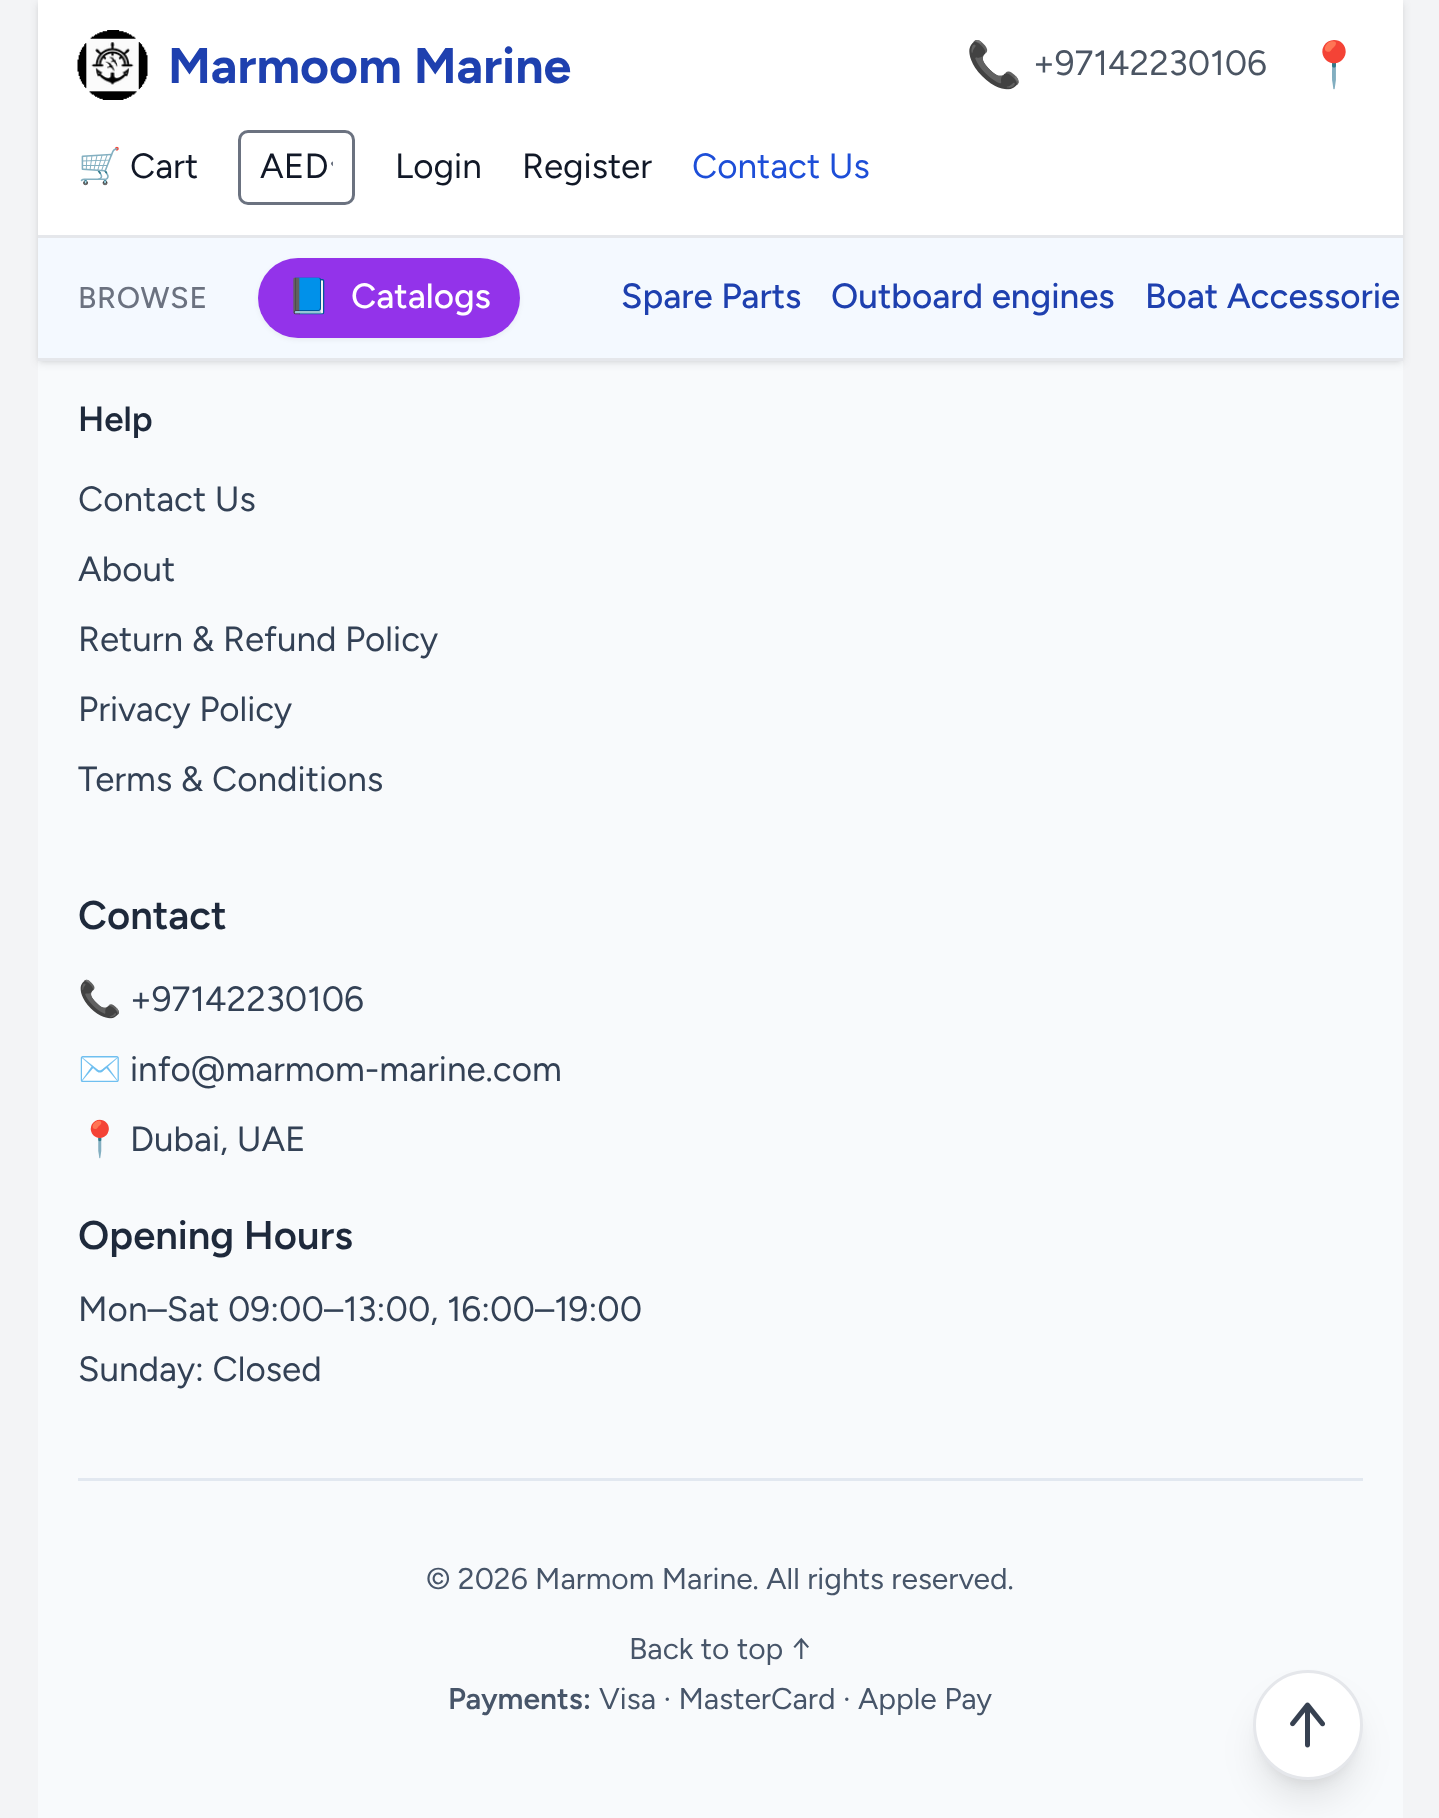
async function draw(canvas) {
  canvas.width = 1439;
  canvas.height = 1818;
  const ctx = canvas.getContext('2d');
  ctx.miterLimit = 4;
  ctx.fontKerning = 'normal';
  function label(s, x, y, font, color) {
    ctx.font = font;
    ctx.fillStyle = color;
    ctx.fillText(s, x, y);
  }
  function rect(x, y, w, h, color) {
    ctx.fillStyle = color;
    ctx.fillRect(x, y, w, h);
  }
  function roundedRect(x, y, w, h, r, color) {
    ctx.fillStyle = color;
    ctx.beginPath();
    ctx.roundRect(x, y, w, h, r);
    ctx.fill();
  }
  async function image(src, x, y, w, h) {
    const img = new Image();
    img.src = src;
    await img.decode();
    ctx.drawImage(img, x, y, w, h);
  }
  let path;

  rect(0, 0, 1439, 1818, '#f3f4f6');
  rect(38, 361, 1365, 1457, '#f8fafc');
  ctx.fillStyle = '#0000001a';
  ctx.filter = 'blur(2.5px)';
  ctx.beginPath();
  ctx.rect(40, 5, 1360, 355);
  ctx.fill();
  ctx.filter = 'none';
  ctx.filter = 'blur(4px)';
  ctx.beginPath();
  ctx.rect(38, 3, 1365, 360);
  ctx.fill();
  ctx.filter = 'none';
  rect(38, 0, 1365, 235, '#fff');
  await image('assets/img1.png', 77, 30, 71, 70);
  label('Marmoom Marine', 168, 83, 'bold 50px Figtree', '#1e40af');
  label('📞', 966, 80, '45px Noto Color Emoji', '#4b5563');
  label('+97142230106', 1033, 75, '35px Figtree', '#4b5563');
  label('📍', 1306, 80, '45px Noto Color Emoji', '#4b5563');
  label('🛒', 78, 178, '35px Noto Color Emoji', '#111827');
  label('Cart', 130, 178, '35px Figtree', '#111827');
  ctx.save();
  ctx.beginPath();
  ctx.rect(280, 143, 53, 52);
  ctx.clip();
  path = new Path2D('M333 163.5L344 174L354 163.5');
  ctx.strokeStyle = '#6b7280';
  ctx.lineWidth = 3.9;
  ctx.lineCap = 'round';
  ctx.lineJoin = 'round';
  ctx.stroke(path);
  ctx.restore();
  ctx.beginPath();
  ctx.roundRect(239.5, 131.5, 114, 72, 8.5);
  ctx.strokeStyle = '#6b7280';
  ctx.lineWidth = 3;
  ctx.stroke();
  label('AED', 260, 178, '35px Figtree', '#111827');
  label('Login', 395, 178, '35px Figtree', '#111827');
  label('Register', 522, 178, '35px Figtree', '#111827');
  label('Contact Us', 692, 178, '35px Figtree', '#1d4ed8');
  rect(38, 238, 1365, 120, '#f4f9ff');
  rect(38, 235, 1365, 3, '#e5e7eb');
  rect(38, 358, 1365, 3, '#e5e7eb');
  ctx.letterSpacing = '0.75px';
  label('BROWSE', 78, 308, '500 30px Figtree', '#6b7280');
  ctx.fillStyle = '#0000000d';
  ctx.filter = 'blur(2.5px)';
  ctx.beginPath();
  ctx.roundRect(258, 260, 262, 80, 40);
  ctx.fill();
  ctx.filter = 'none';
  roundedRect(258, 258, 262, 80, 40, '#9333ea');
  ctx.letterSpacing = '0px';
  label('📘', 287, 308, '35px Noto Color Emoji', '#fff');
  label('Catalogs', 351, 308, '500 35px Figtree', '#fff');
  label('Spare Parts', 621, 308, '500 35px Figtree', '#1e40af');
  label('Outboard engines', 831, 308, '500 35px Figtree', '#1e40af');
  label('Boat Accessorie', 1145, 308, '500 35px Figtree', '#1e40af');
  label('Help', 78, 431, '600 35px Figtree', '#1e293b');
  label('Contact Us', 78, 511, '35px Figtree', '#334155');
  label('About', 78, 581, '35px Figtree', '#334155');
  label('Return & Refund Policy', 78, 651, '35px Figtree', '#334155');
  label('Privacy Policy', 78, 721, '35px Figtree', '#334155');
  label('Terms & Conditions', 78, 791, '35px Figtree', '#334155');
  label('Contact', 78, 929, '600 40px Figtree', '#1e293b');
  label('📞', 78, 1011, '35px Noto Color Emoji', '#334155');
  label('+97142230106', 130, 1011, '35px Figtree', '#334155');
  label('✉️', 78, 1081, '35px Noto Color Emoji', '#334155');
  label('info@marmom-marine.com', 130, 1081, '35px Figtree', '#334155');
  label('📍', 78, 1151, '35px Noto Color Emoji', '#334155');
  label('Dubai, UAE', 130, 1151, '35px Figtree', '#334155');
  label('Opening Hours', 78, 1249, '600 40px Figtree', '#1e293b');
  label('Mon–Sat 09:00–13:00, 16:00–19:00', 78, 1321, '35px Figtree', '#334155');
  label('Sunday: Closed', 78, 1381, '35px Figtree', '#334155');
  rect(78, 1478, 1285, 3, '#e2e8f0');
  label('© 2026 Marmom Marine. All rights reserved.', 426, 1589, '30px Figtree', '#475569');
  label('Back to top ↑', 629, 1659, '30px Figtree', '#475569');
  label('Payments:', 448, 1709, '600 30px Figtree', '#475569');
  label('Visa · MasterCard · Apple Pay', 599, 1709, '30px Figtree', '#475569');
  ctx.fillStyle = '#0000001a';
  ctx.filter = 'blur(7.5px)';
  ctx.beginPath();
  ctx.roundRect(1263, 1690, 90, 90, 45);
  ctx.fill();
  ctx.filter = 'none';
  ctx.filter = 'blur(19px)';
  ctx.beginPath();
  ctx.roundRect(1260, 1703, 95, 95, 47.5);
  ctx.fill();
  ctx.filter = 'none';
  ctx.fillStyle = '#fff';
  ctx.beginPath();
  ctx.arc(1308, 1725, 53.5, 0, 2 * Math.PI);
  ctx.fill();
  ctx.strokeStyle = '#e5e7eb';
  ctx.stroke();
  await image('assets/img2.png', 1290, 1702, 35, 46);
}

draw(document.querySelector('canvas'));
